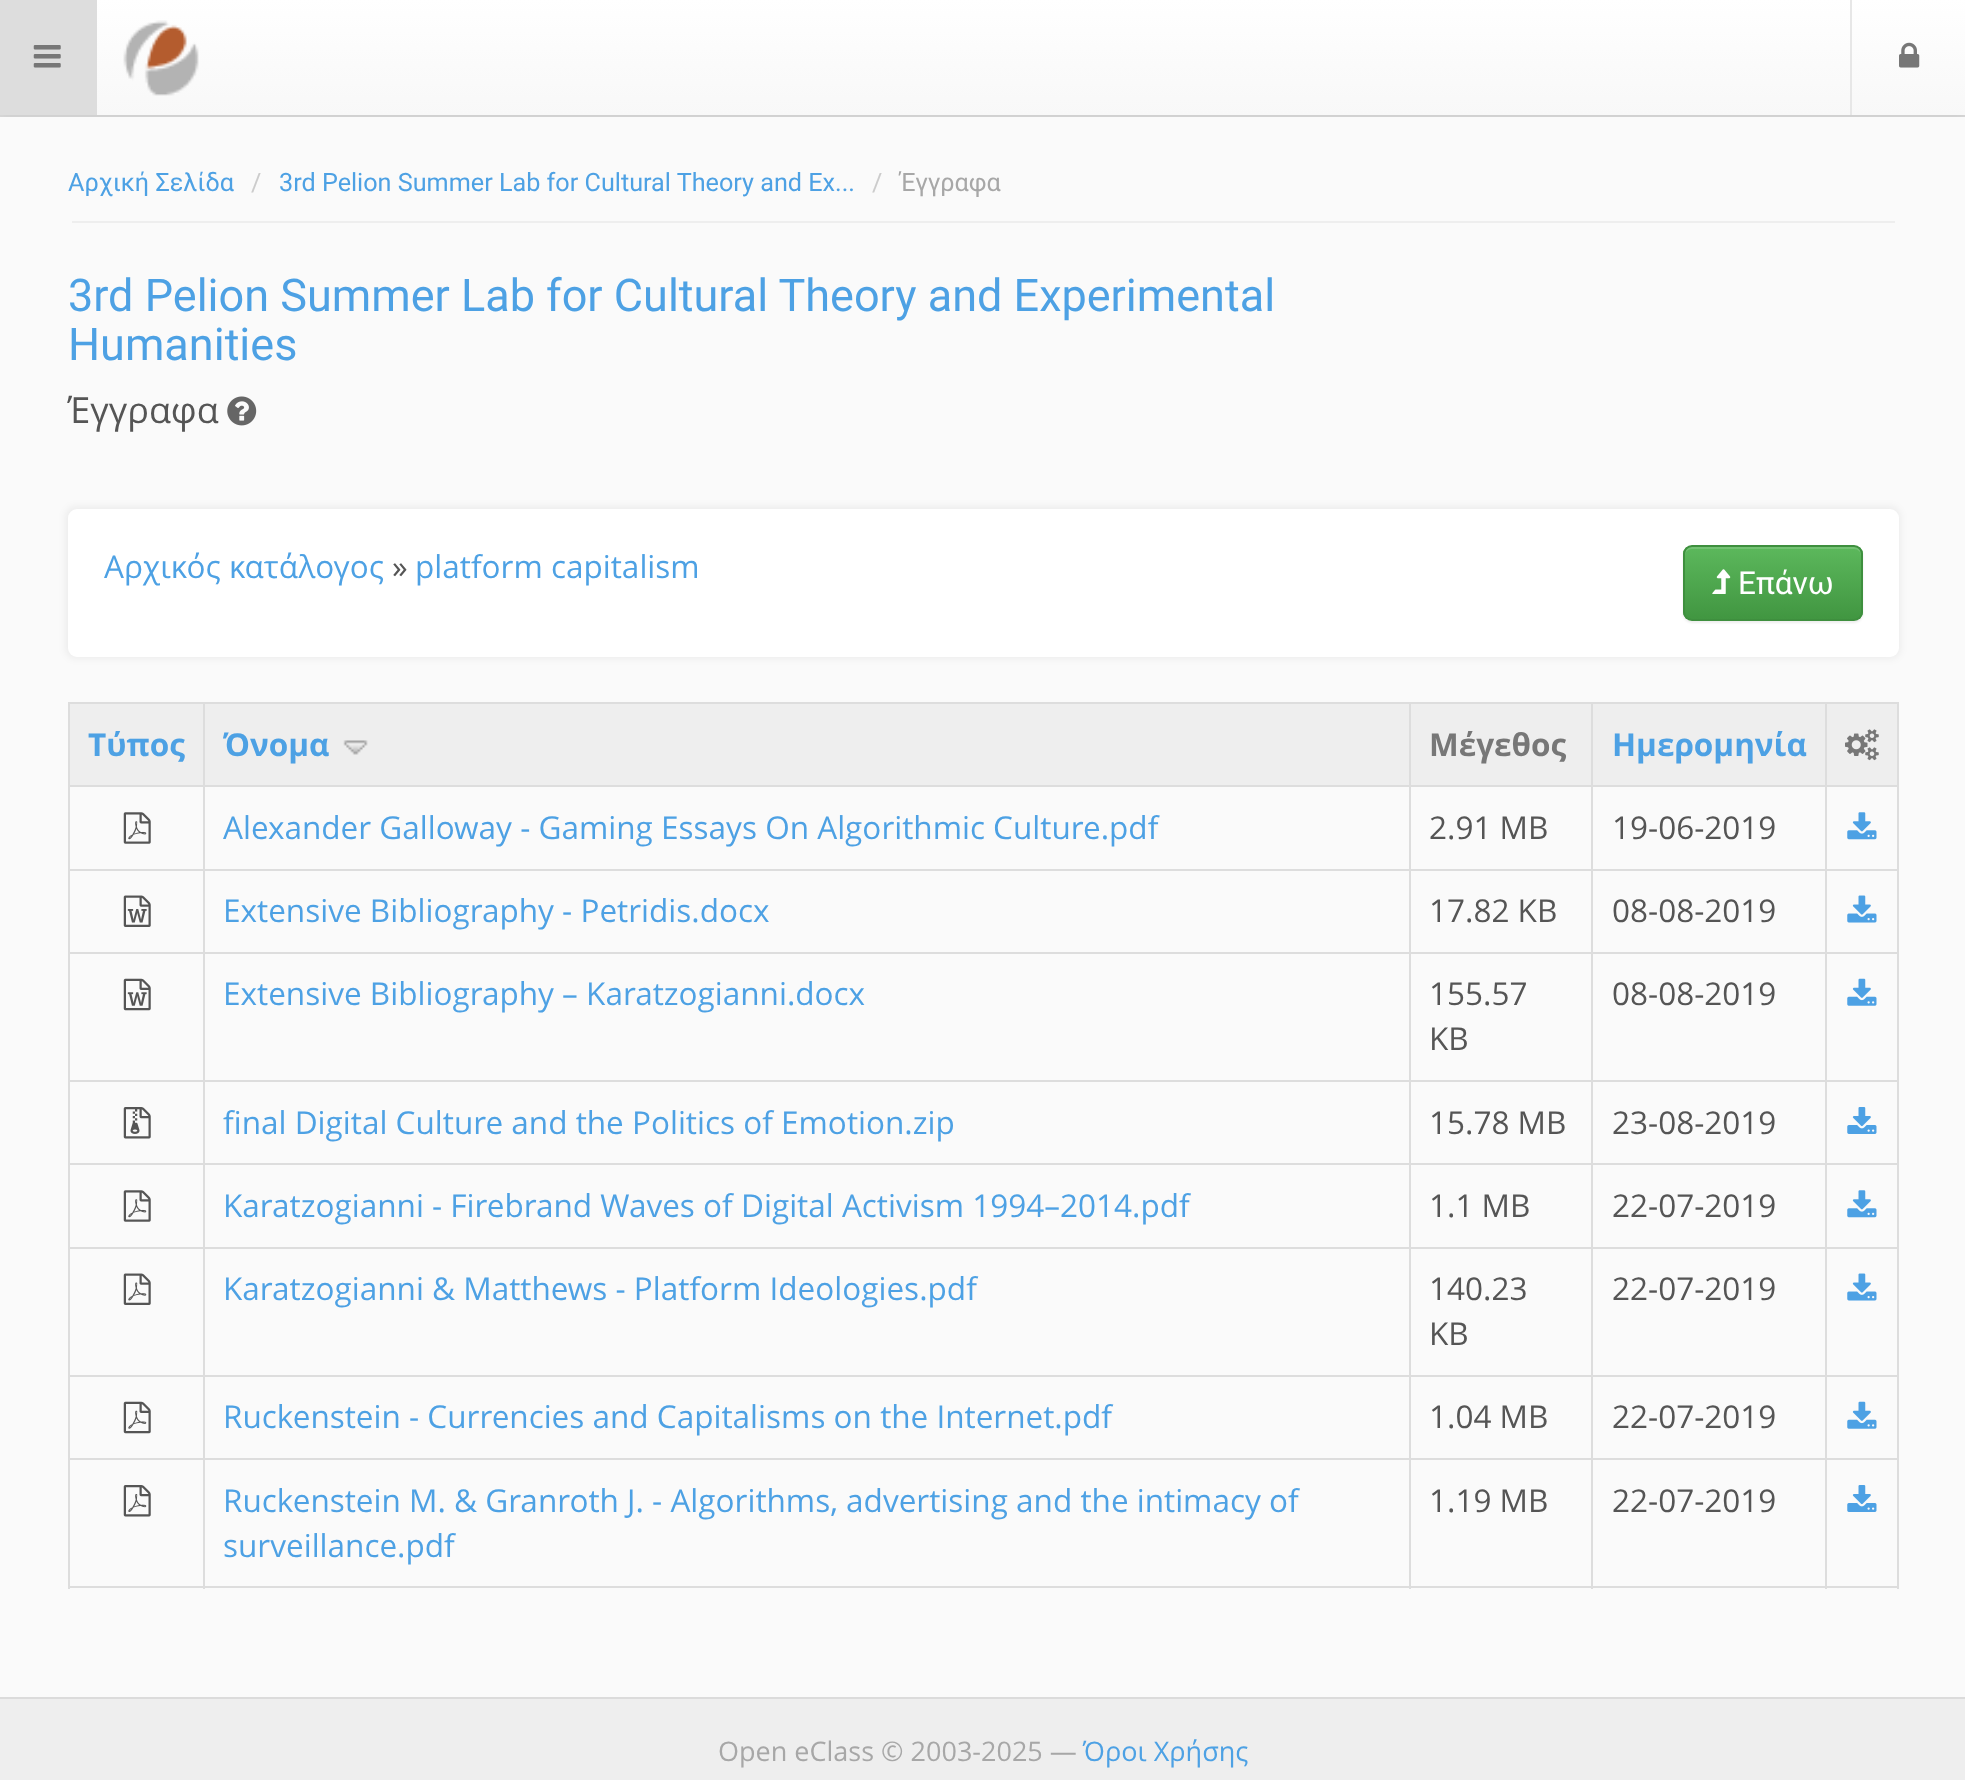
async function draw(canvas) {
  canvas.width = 1965;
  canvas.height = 1780;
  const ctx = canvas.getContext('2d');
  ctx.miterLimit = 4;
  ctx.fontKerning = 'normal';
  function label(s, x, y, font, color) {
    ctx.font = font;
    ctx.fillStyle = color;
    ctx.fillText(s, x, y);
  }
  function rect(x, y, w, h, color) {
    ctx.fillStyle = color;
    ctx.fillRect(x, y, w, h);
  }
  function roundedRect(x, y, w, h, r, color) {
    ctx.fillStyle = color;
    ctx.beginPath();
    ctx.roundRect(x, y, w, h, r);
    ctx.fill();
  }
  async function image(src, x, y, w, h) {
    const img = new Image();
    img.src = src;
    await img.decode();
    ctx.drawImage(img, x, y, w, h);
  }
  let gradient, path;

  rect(0, 0, 1965, 1780, '#dbdbdb');
  ctx.fillStyle = '#00000012';
  ctx.filter = 'blur(5.5px)';
  ctx.beginPath();
  ctx.rect(0, 0, 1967, 117);
  ctx.fill();
  ctx.filter = 'none';
  gradient = ctx.createLinearGradient(983, -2.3, 983, 115);
  gradient.addColorStop(0, '#fff');
  gradient.addColorStop(1, '#f8f8f8');
  ctx.fillStyle = gradient;
  ctx.fillRect(97, 0, 1868, 115);
  rect(0, 0, 97, 115, '#ddd');
  await image('assets/img1.png', 33, 45, 28, 23);
  await image('assets/img2.png', 123, 20, 76, 76);
  rect(1850, 0, 2, 115, '#e7e7e7');
  await image('assets/img3.png', 1899, 42, 21, 26);
  rect(0, 117, 1965, 1580, '#fafafa');
  rect(72, 221, 1823, 2, '#eee');
  label('Αρχική Σελίδα', 68, 191, '25.2px Roboto', '#4da1e4');
  label('/', 251, 191, '25.2px Roboto', '#ccc');
  label('3rd Pelion Summer Lab for Cultural Theory and Ex...', 279, 191, '25.2px Roboto', '#4da1e4');
  label('/', 872, 191, '25.2px Roboto', '#ccc');
  label('Έγγραφα', 900, 191, '25.2px Roboto', '#a7a7a7');
  label('3rd Pelion Summer Lab for Cultural Theory and Experimental', 68, 311, '45px Roboto', '#4da1e4');
  label('Humanities', 68, 360, '45px Roboto', '#4da1e4');
  label('Έγγραφα', 68, 423, '36px Open Sans', '#555');
  await image('assets/img4.png', 227, 396, 30, 30);
  ctx.fillStyle = '#0000000d';
  ctx.filter = 'blur(3.5px)';
  ctx.beginPath();
  ctx.roundRect(65, 506, 1836, 153, 11);
  ctx.fill();
  ctx.filter = 'none';
  roundedRect(68, 509, 1831, 148, 9, '#fff');
  label('Αρχικός κατάλογος', 104, 578, '31.5px Open Sans', '#4da1e4');
  label('»', 392, 578, '31.5px Open Sans', '#555');
  label('platform capitalism', 415, 578, '31.5px Open Sans', '#4da1e4');
  ctx.fillStyle = '#00000012';
  ctx.filter = 'blur(1px)';
  ctx.beginPath();
  ctx.roundRect(1683, 547, 180, 76, 9);
  ctx.fill();
  ctx.filter = 'none';
  ctx.save();
  ctx.beginPath();
  ctx.roundRect(1683, 545, 180, 76, 9);
  ctx.clip();
  gradient = ctx.createLinearGradient(1773, 547, 1773, 619);
  gradient.addColorStop(0, '#5cb85c');
  gradient.addColorStop(1, '#419641');
  ctx.fillStyle = gradient;
  ctx.fillRect(1683, 547, 180, 72);
  ctx.restore();
  ctx.fillStyle = '#ffffff26';
  path = new Path2D('M1692 549H1854C1858 549 1861 552 1861 556V554C1861 550 1858 547 1854 547H1692C1688 547 1685 550 1685 554V556C1685 552 1688 549 1692 549Z');
  ctx.fill(path);
  ctx.beginPath();
  ctx.roundRect(1684, 546, 178, 74, 8);
  ctx.strokeStyle = '#3e8f3e';
  ctx.lineWidth = 2;
  ctx.stroke();
  await image('assets/img5.png', 1712, 569, 19, 25);
  label('Επάνω', 1738, 594, '31.5px Roboto', '#fff');
  rect(68, 702, 1831, 2, '#ddd');
  rect(1897, 702, 2, 887, '#ddd');
  rect(68, 1586, 1831, 2, '#ddd');
  rect(68, 702, 2, 887, '#ddd');
  rect(70, 704, 1827, 81, '#eee');
  label('Τύπος', 88, 756, 'bold 31.5px Open Sans', '#4da1e4');
  rect(1825, 785, 74, 2, '#ddd');
  rect(1825, 869, 74, 2, '#ddd');
  rect(1825, 952, 74, 2, '#ddd');
  rect(1825, 1080, 74, 2, '#ddd');
  rect(1825, 1163, 74, 2, '#ddd');
  rect(1825, 1247, 74, 2, '#ddd');
  rect(1825, 1375, 74, 2, '#ddd');
  rect(1825, 1458, 74, 2, '#ddd');
  rect(1825, 1458, 2, 131, '#ddd');
  rect(1591, 1458, 236, 2, '#ddd');
  rect(1825, 1375, 2, 85, '#ddd');
  rect(1591, 1375, 236, 2, '#ddd');
  rect(1825, 1247, 2, 130, '#ddd');
  rect(1591, 1247, 236, 2, '#ddd');
  rect(1825, 1163, 2, 86, '#ddd');
  rect(1591, 1163, 236, 2, '#ddd');
  rect(1825, 1080, 2, 86, '#ddd');
  rect(1591, 1080, 236, 2, '#ddd');
  rect(1825, 952, 2, 130, '#ddd');
  rect(1591, 952, 236, 2, '#ddd');
  rect(1825, 869, 2, 85, '#ddd');
  rect(1591, 869, 236, 2, '#ddd');
  rect(1825, 785, 2, 86, '#ddd');
  rect(1591, 785, 236, 2, '#ddd');
  rect(1591, 1458, 2, 131, '#ddd');
  rect(1409, 1458, 184, 2, '#ddd');
  rect(1591, 1375, 2, 85, '#ddd');
  rect(1409, 1375, 184, 2, '#ddd');
  rect(1591, 1247, 2, 130, '#ddd');
  rect(1409, 1247, 184, 2, '#ddd');
  rect(1591, 1163, 2, 86, '#ddd');
  rect(1409, 1163, 184, 2, '#ddd');
  rect(1591, 1080, 2, 86, '#ddd');
  rect(1409, 1080, 184, 2, '#ddd');
  rect(1591, 952, 2, 130, '#ddd');
  rect(1409, 952, 184, 2, '#ddd');
  rect(1591, 869, 2, 85, '#ddd');
  rect(1409, 869, 184, 2, '#ddd');
  rect(1591, 785, 2, 86, '#ddd');
  rect(1409, 785, 184, 2, '#ddd');
  rect(1409, 1458, 2, 131, '#ddd');
  rect(203, 1458, 1208, 2, '#ddd');
  rect(1409, 1375, 2, 85, '#ddd');
  rect(203, 1375, 1208, 2, '#ddd');
  rect(1409, 1247, 2, 130, '#ddd');
  rect(203, 1247, 1208, 2, '#ddd');
  rect(1409, 1163, 2, 86, '#ddd');
  rect(203, 1163, 1208, 2, '#ddd');
  rect(1409, 1080, 2, 86, '#ddd');
  rect(203, 1080, 1208, 2, '#ddd');
  rect(1409, 952, 2, 130, '#ddd');
  rect(203, 952, 1208, 2, '#ddd');
  rect(1409, 869, 2, 85, '#ddd');
  rect(203, 869, 1208, 2, '#ddd');
  rect(1409, 785, 2, 86, '#ddd');
  rect(203, 785, 1208, 2, '#ddd');
  rect(203, 1458, 2, 131, '#ddd');
  rect(68, 1458, 137, 2, '#ddd');
  rect(203, 1375, 2, 85, '#ddd');
  rect(68, 1375, 137, 2, '#ddd');
  rect(203, 1247, 2, 130, '#ddd');
  rect(68, 1247, 137, 2, '#ddd');
  rect(203, 1163, 2, 86, '#ddd');
  rect(68, 1163, 137, 2, '#ddd');
  rect(203, 1080, 2, 86, '#ddd');
  rect(68, 1080, 137, 2, '#ddd');
  rect(203, 952, 2, 130, '#ddd');
  rect(68, 952, 137, 2, '#ddd');
  rect(203, 869, 2, 85, '#ddd');
  rect(68, 869, 137, 2, '#ddd');
  rect(203, 785, 2, 86, '#ddd');
  rect(68, 785, 137, 2, '#ddd');
  rect(203, 702, 2, 86, '#ddd');
  label('Όνομα', 223, 756, 'bold 31.5px Open Sans', '#4da1e4');
  await image('assets/img6.png', 343, 740, 25, 15);
  rect(1409, 702, 2, 86, '#ddd');
  label('Μέγεθος', 1429, 756, 'bold 31.5px Open Sans', '#777');
  rect(1591, 702, 2, 86, '#ddd');
  label('Ημερομηνία', 1612, 756, 'bold 31.5px Open Sans', '#4da1e4');
  rect(1825, 702, 2, 86, '#ddd');
  await image('assets/img7.png', 1845, 729, 34, 32);
  await image('assets/img8.png', 123, 812, 28, 32);
  label('Alexander Galloway - Gaming Essays On Algorithmic Culture.pdf', 223, 839, '31.5px Open Sans', '#4da1e4');
  label('2.91 MB', 1429, 839, '31.5px Open Sans', '#555');
  label('19-06-2019', 1612, 839, '31.5px Open Sans', '#555');
  await image('assets/img9.png', 1847, 812, 30, 28);
  await image('assets/img10.png', 123, 895, 28, 32);
  label('Extensive Bibliography - Petridis.docx', 223, 922, '31.5px Open Sans', '#4da1e4');
  label('17.82 KB', 1429, 922, '31.5px Open Sans', '#555');
  label('08-08-2019', 1612, 922, '31.5px Open Sans', '#555');
  await image('assets/img11.png', 1847, 895, 30, 28);
  await image('assets/img12.png', 123, 978, 28, 33);
  label('Extensive Bibliography – Karatzogianni.docx', 223, 1005, '31.5px Open Sans', '#4da1e4');
  label('155.57', 1429, 1005, '31.5px Open Sans', '#555');
  label('KB', 1429, 1050, '31.5px Open Sans', '#555');
  label('08-08-2019', 1612, 1005, '31.5px Open Sans', '#555');
  await image('assets/img13.png', 1847, 978, 30, 28);
  await image('assets/img14.png', 123, 1107, 28, 32);
  label('final Digital Culture and the Politics of Emotion.zip', 223, 1134, '31.5px Open Sans', '#4da1e4');
  label('15.78 MB', 1429, 1134, '31.5px Open Sans', '#555');
  label('23-08-2019', 1612, 1134, '31.5px Open Sans', '#555');
  await image('assets/img15.png', 1847, 1107, 30, 27);
  await image('assets/img8.png', 123, 1190, 28, 32);
  label('Karatzogianni - Firebrand Waves of Digital Activism 1994–2014.pdf', 223, 1217, '31.5px Open Sans', '#4da1e4');
  label('1.1 MB', 1429, 1217, '31.5px Open Sans', '#555');
  label('22-07-2019', 1612, 1217, '31.5px Open Sans', '#555');
  await image('assets/img9.png', 1847, 1190, 30, 28);
  await image('assets/img16.png', 123, 1273, 28, 32);
  label('Karatzogianni & Matthews - Platform Ideologies.pdf', 223, 1300, '31.5px Open Sans', '#4da1e4');
  label('140.23', 1429, 1300, '31.5px Open Sans', '#555');
  label('KB', 1429, 1345, '31.5px Open Sans', '#555');
  label('22-07-2019', 1612, 1300, '31.5px Open Sans', '#555');
  await image('assets/img11.png', 1847, 1273, 30, 28);
  await image('assets/img17.png', 123, 1401, 28, 33);
  label('Ruckenstein - Currencies and Capitalisms on the Internet.pdf', 223, 1428, '31.5px Open Sans', '#4da1e4');
  label('1.04 MB', 1429, 1428, '31.5px Open Sans', '#555');
  label('22-07-2019', 1612, 1428, '31.5px Open Sans', '#555');
  await image('assets/img13.png', 1847, 1401, 30, 28);
  await image('assets/img18.png', 123, 1485, 28, 32);
  label('Ruckenstein M. & Granroth J. - Algorithms, advertising and the intimacy of', 223, 1512, '31.5px Open Sans', '#4da1e4');
  label('surveillance.pdf', 223, 1557, '31.5px Open Sans', '#4da1e4');
  label('1.19 MB', 1429, 1512, '31.5px Open Sans', '#555');
  label('22-07-2019', 1612, 1512, '31.5px Open Sans', '#555');
  await image('assets/img15.png', 1847, 1485, 30, 27);
  rect(0, 1699, 1965, 81, '#eee');
  label('Open eClass © 2003-2025 —', 718, 1761, '27px Open Sans', '#a7a7a7');
  label('Όροι Χρήσης', 1083, 1761, '27px Open Sans', '#4da1e4');
}

draw(document.querySelector('canvas'));
